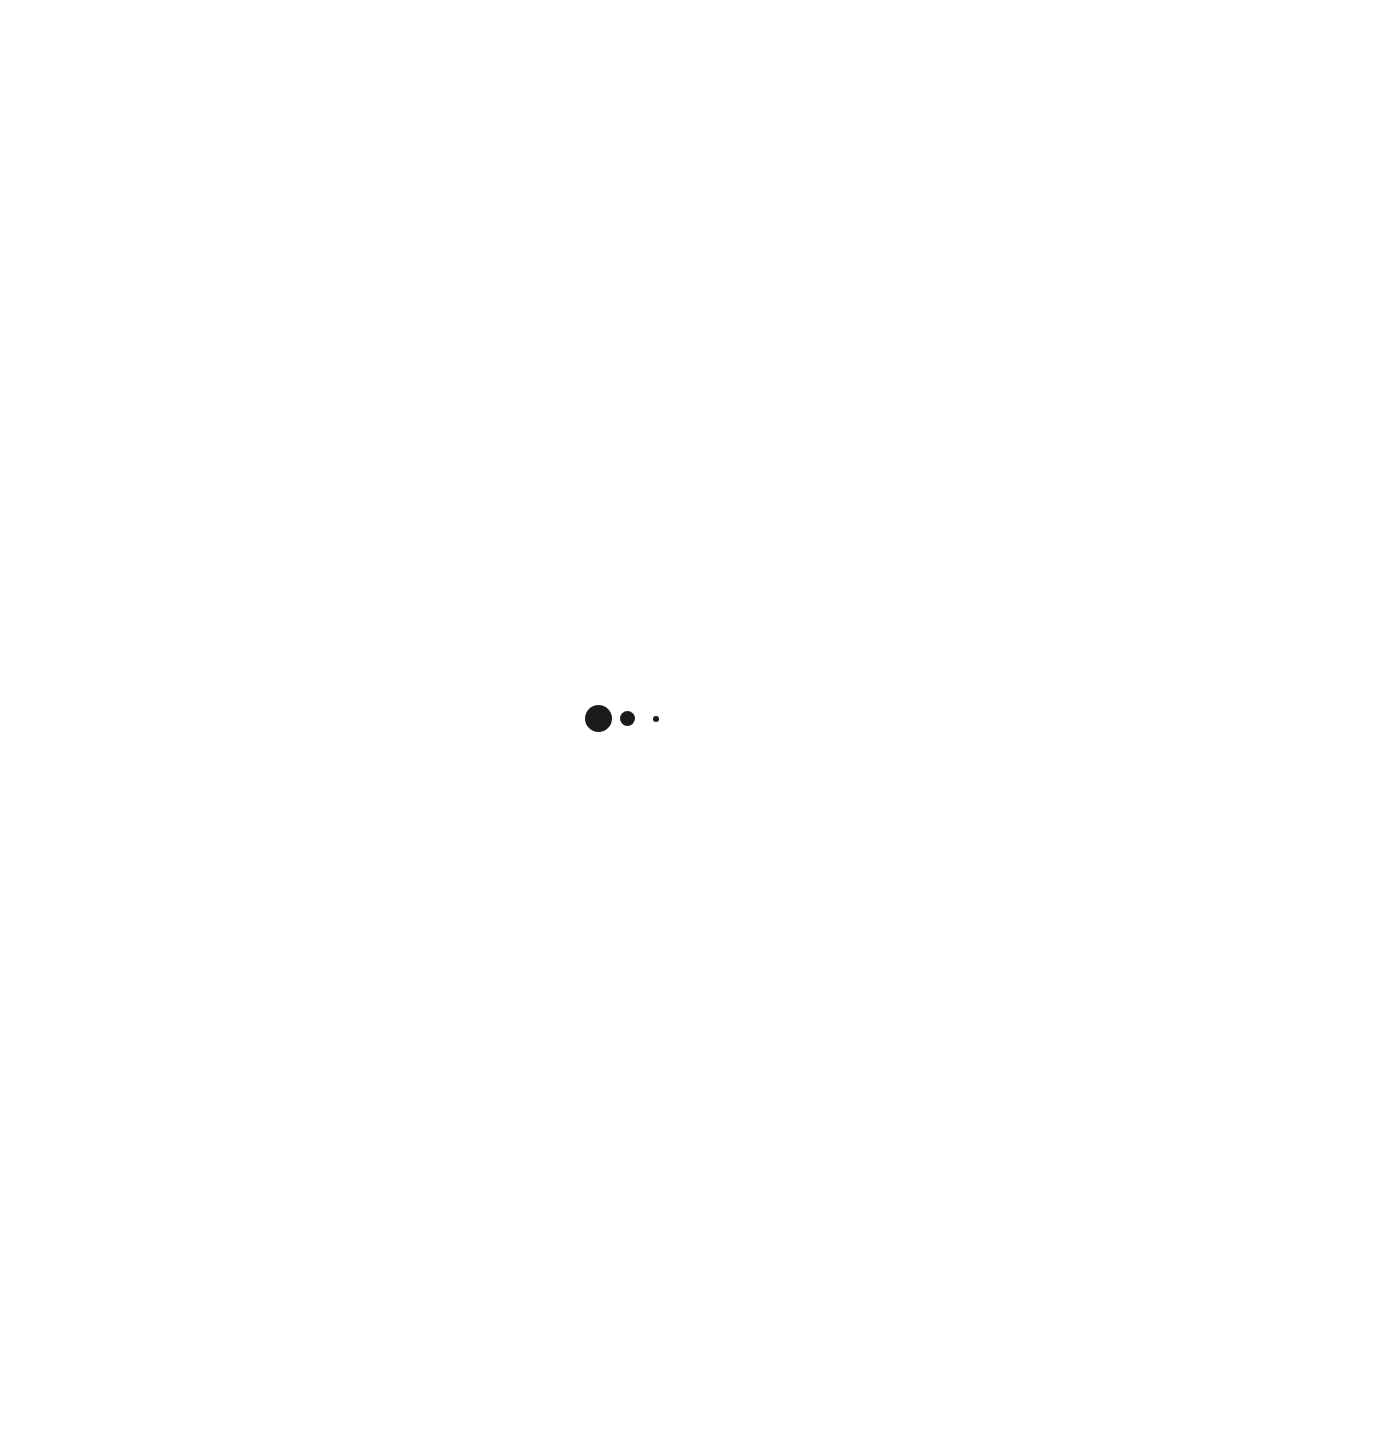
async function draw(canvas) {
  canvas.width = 1396;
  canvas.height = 1435;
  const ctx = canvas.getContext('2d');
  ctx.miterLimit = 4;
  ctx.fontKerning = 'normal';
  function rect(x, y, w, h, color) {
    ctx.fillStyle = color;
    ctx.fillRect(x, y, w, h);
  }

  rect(0, 0, 1396, 1435, '#fff');
  ctx.fillStyle = '#191b1d';
  ctx.beginPath();
  ctx.arc(656, 719, 3, 0, 2 * Math.PI);
  ctx.fill();
  ctx.beginPath();
  ctx.arc(627.5, 718.5, 7.5, 0, 2 * Math.PI);
  ctx.fill();
  ctx.beginPath();
  ctx.arc(598.5, 718.5, 13.5, 0, 2 * Math.PI);
  ctx.fill();
}

draw(document.querySelector('canvas'));
